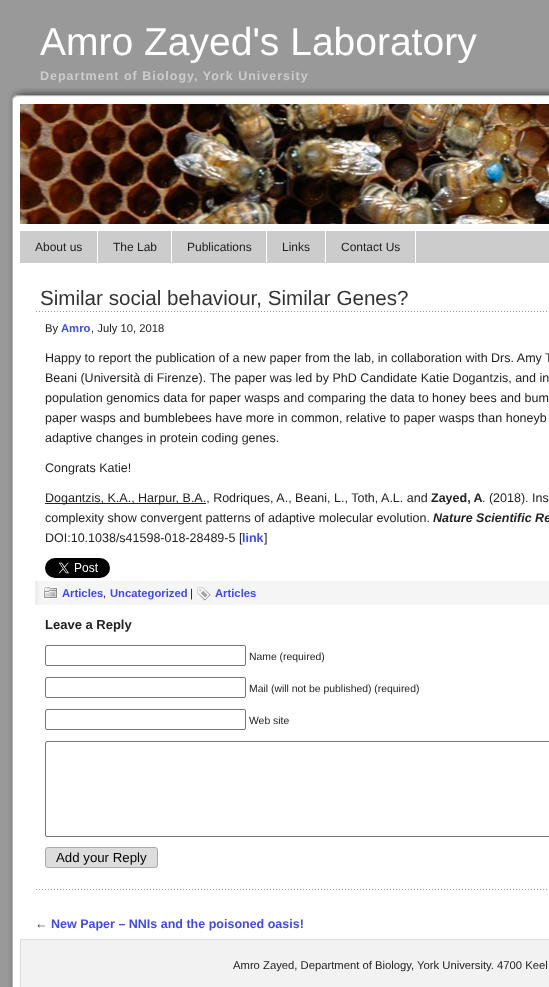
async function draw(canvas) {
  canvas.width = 549;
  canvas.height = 987;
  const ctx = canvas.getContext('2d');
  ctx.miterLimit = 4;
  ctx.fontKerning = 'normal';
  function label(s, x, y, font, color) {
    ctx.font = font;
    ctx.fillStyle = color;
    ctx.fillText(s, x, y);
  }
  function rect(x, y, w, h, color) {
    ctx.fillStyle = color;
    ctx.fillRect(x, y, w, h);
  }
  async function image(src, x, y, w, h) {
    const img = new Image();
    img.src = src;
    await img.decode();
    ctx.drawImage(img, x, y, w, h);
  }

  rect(0, 0, 549, 987, '#999');
  rect(13, 104, 536, 883, '#fff');
  await image('assets/img1.png', 0, 104, 13, 883);
  await image('assets/img2.png', 8, 88, 541, 16);
  label('Amro Zayed\'s Laboratory', 40, 55, '39px Liberation Sans', '#fff');
  ctx.letterSpacing = '1px';
  label('Department of Biology, York University', 40, 80, 'bold 12.5px Liberation Sans', '#ccc');
  await image('assets/img3.png', 20, 104, 529, 120);
  rect(20, 231, 529, 32, '#ccc');
  rect(97, 231, 1, 32, '#fff');
  ctx.letterSpacing = '0px';
  label('About us', 35, 251, '12px Liberation Sans', '#222');
  rect(171, 231, 1, 32, '#fff');
  label('The Lab', 113, 251, '12px Liberation Sans', '#222');
  rect(266, 231, 1, 32, '#fff');
  label('Publications', 187, 251, '12px Liberation Sans', '#222');
  rect(325, 231, 1, 32, '#fff');
  label('Links', 282, 251, '12px Liberation Sans', '#222');
  rect(415, 231, 1, 32, '#fff');
  label('Contact Us', 341, 251, '12px Liberation Sans', '#222');
  await image('assets/img4.png', 36, 889, 511, 1);
  await image('assets/img4.png', 36, 311, 511, 1);
  label('Similar social behaviour, Similar Genes?', 40, 305, '20.6px Liberation Sans', '#333');
  label('By', 45, 332, '11.25px Liberation Sans', '#222');
  label('Amro', 61, 332, 'bold 11.25px Liberation Sans', '#424cdb');
  label(', July 10, 2018', 91, 332, '11.25px Liberation Sans', '#222');
  label('Happy to report the publication of a new paper from the lab, in collaboration with Drs. Amy T', 45, 362, '12.5px Liberation Sans', '#222');
  label('Beani (Università di Firenze). The paper was led by PhD Candidate Katie Dogantzis, and in', 45, 382, '12.5px Liberation Sans', '#222');
  label('population genomics data for paper wasps and comparing the data to honey bees and bum', 45, 402, '12.5px Liberation Sans', '#222');
  label('paper wasps and bumblebees have more in common, relative to paper wasps than honeyb', 45, 422, '12.5px Liberation Sans', '#222');
  label('adaptive changes in protein coding genes.', 45, 442, '12.5px Liberation Sans', '#222');
  label('Congrats Katie!', 45, 472, '12.5px Liberation Sans', '#222');
  rect(45, 503, 161, 1, '#222');
  label('Dogantzis, K.A., Harpur, B.A., Rodriques, A., Beani, L., Toth, A.L. and', 45, 502, '12.5px Liberation Sans', '#222');
  label('Zayed, A', 431, 502, 'bold 12.5px Liberation Sans', '#222');
  label('. (2018). Ins', 482, 502, '12.5px Liberation Sans', '#222');
  label('complexity show convergent patterns of adaptive molecular evolution.', 45, 522, '12.5px Liberation Sans', '#222');
  label('Nature Scientific Re', 433, 522, 'italic bold 12.5px Liberation Sans', '#222');
  label('DOI:10.1038/s41598-018-28489-5 [', 45, 542, '12.5px Liberation Sans', '#222');
  label('link', 242, 542, 'bold 12.5px Liberation Sans', '#424cdb');
  label(']', 264, 542, '12.5px Liberation Sans', '#222');
  await image('assets/img5.png', 45, 558, 65, 20);
  rect(38, 581, 511, 24, '#f5f5f5');
  rect(35, 581, 3, 24, '#eee');
  await image('assets/img6.png', 43, 586, 15, 13);
  label('Articles', 62, 597, 'bold 11.25px Liberation Sans', '#424cdb');
  label(',', 103, 597, '11.25px Liberation Sans', '#222');
  label('Uncategorized', 110, 597, 'bold 11.25px Liberation Sans', '#424cdb');
  label('|', 190, 597, '11.25px Liberation Sans', '#222');
  await image('assets/img7.png', 197, 587, 14, 14);
  label('Articles', 215, 597, 'bold 11.25px Liberation Sans', '#424cdb');
  label('Leave a Reply', 45, 629, 'bold 13px Liberation Sans', '#222');
  ctx.beginPath();
  ctx.roundRect(45.5, 645.5, 200, 20, 1.5);
  ctx.strokeStyle = '#767676';
  ctx.stroke();
  label('Name (required)', 249, 660, '10.4px Liberation Sans', '#222');
  ctx.beginPath();
  ctx.roundRect(45.5, 677.5, 200, 20, 1.5);
  ctx.stroke();
  label('Mail (will not be published) (required)', 249, 692, '10.4px Liberation Sans', '#222');
  ctx.beginPath();
  ctx.roundRect(45.5, 709.5, 200, 20, 1.5);
  ctx.stroke();
  label('Web site', 249, 724, '10.4px Liberation Sans', '#222');
  ctx.beginPath();
  ctx.roundRect(45.5, 741.5, 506, 95, 1.5);
  ctx.stroke();
  ctx.fillStyle = '#ddd';
  ctx.beginPath();
  ctx.roundRect(45.5, 847.5, 112, 20, 2.5);
  ctx.fill();
  ctx.strokeStyle = '#aaa';
  ctx.stroke();
  label('Add your Reply', 56, 862, '13.25px Liberation Sans', '#000');
  label('←', 35, 928, '12.5px Liberation Sans', '#222');
  label('New Paper – NNIs and the poisoned oasis!', 51, 928, 'bold 12.5px Liberation Sans', '#424cdb');
  ctx.fillStyle = '#f2f2f2';
  ctx.beginPath();
  ctx.rect(20.5, 939.5, 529, 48);
  ctx.fill();
  ctx.strokeStyle = '#ddd';
  ctx.stroke();
  label('Amro Zayed, Department of Biology, York University. 4700 Keel', 233, 969, '11.25px Liberation Sans', '#222');
}

draw(document.querySelector('canvas'));
